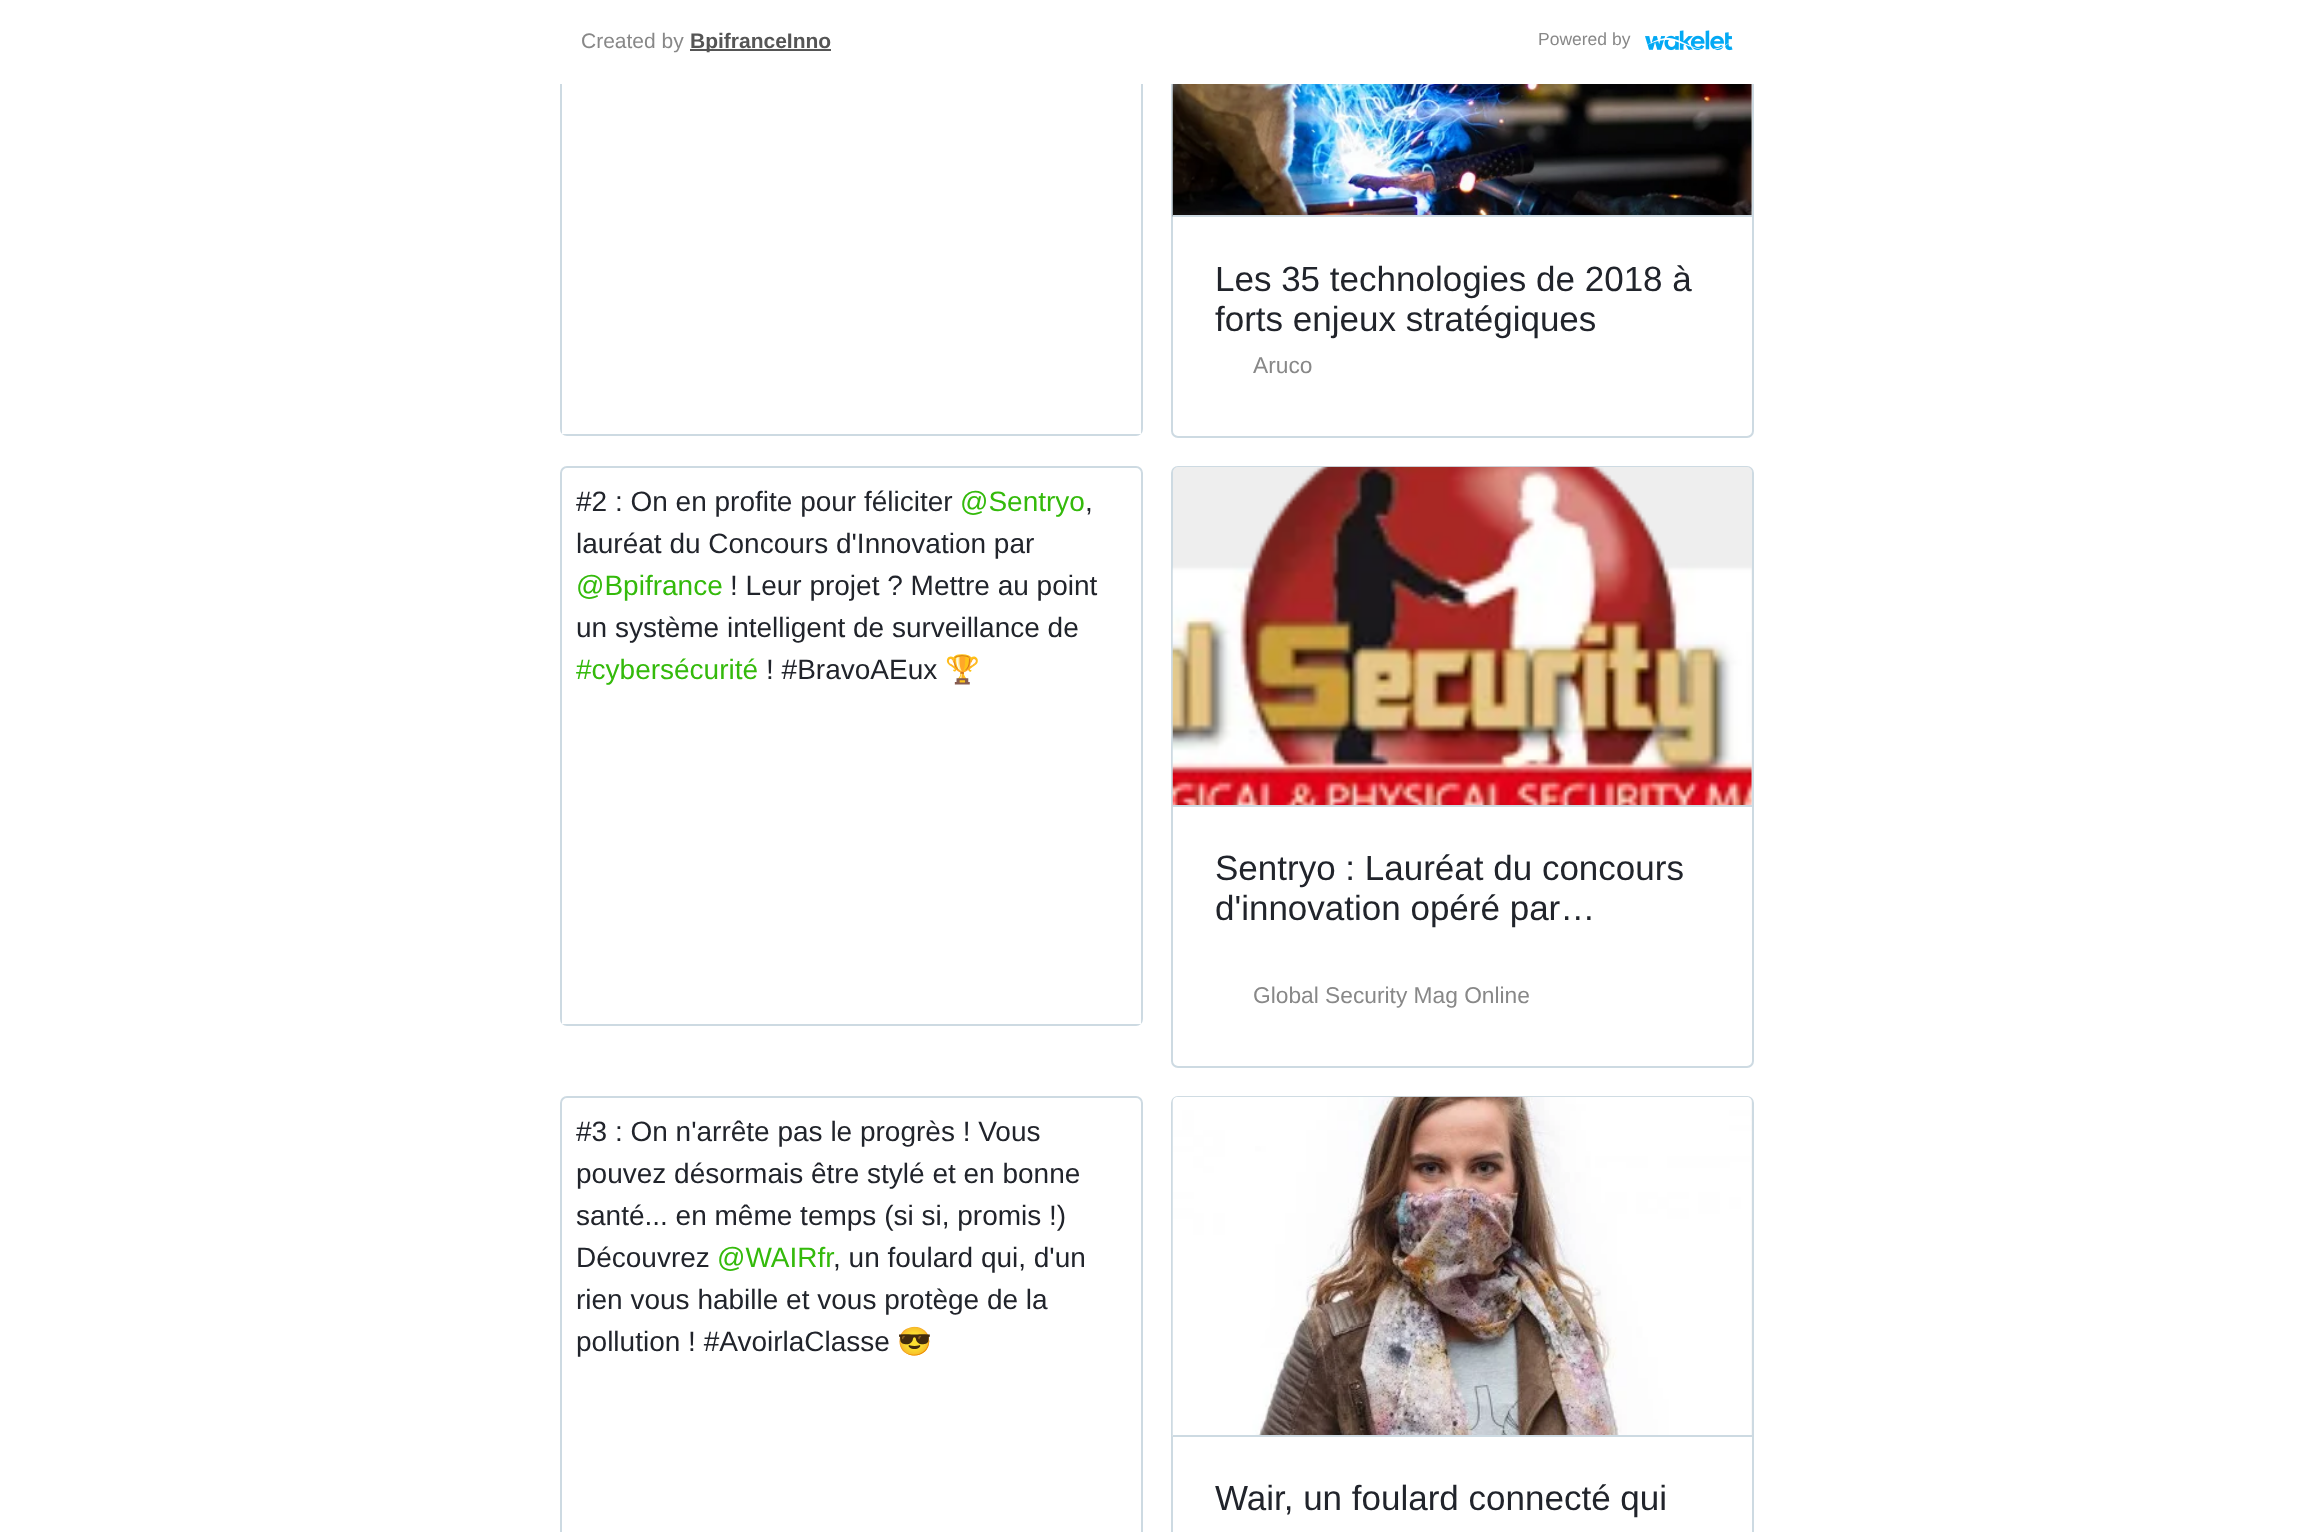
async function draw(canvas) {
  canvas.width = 2312;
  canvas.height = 1532;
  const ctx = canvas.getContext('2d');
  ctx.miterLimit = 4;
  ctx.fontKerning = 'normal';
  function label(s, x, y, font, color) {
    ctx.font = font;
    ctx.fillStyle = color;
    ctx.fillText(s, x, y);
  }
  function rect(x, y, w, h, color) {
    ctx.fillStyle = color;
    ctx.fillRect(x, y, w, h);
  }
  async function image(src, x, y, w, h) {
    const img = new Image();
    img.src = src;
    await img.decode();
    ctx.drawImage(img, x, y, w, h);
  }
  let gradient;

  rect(0, 0, 2312, 1532, '#fff');
  ctx.beginPath();
  ctx.roundRect(561, -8, 581, 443, 6);
  ctx.strokeStyle = '#cddae2';
  ctx.lineWidth = 2;
  ctx.stroke();
  ctx.beginPath();
  ctx.roundRect(1172, -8, 581, 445, 6);
  ctx.stroke();
  rect(560, 0, 1194, 84, '#fff');
  label('Created by', 581, 48, '21px Liberation Sans', '#888');
  rect(690, 49, 141, 2, '#555');
  label('BpifranceInno', 690, 48, 'bold 21px Liberation Sans', '#555');
  label('Powered by', 1538, 45, '17.5px Liberation Sans', '#888');
  await image('assets/img1.png', 1645, 30, 88, 21);
  gradient = ctx.createLinearGradient(851, 294, 851, 434);
  gradient.addColorStop(0, '#ffffff00');
  gradient.addColorStop(1, '#fff');
  ctx.fillStyle = gradient;
  ctx.fillRect(562, 429, 579, 5);
  rect(1751, 84, 1, 131, '#eee');
  await image('assets/img2.png', 1172, 84, 580, 133);
  rect(1173, 215, 579, 2, '#cddae2');
  label('Les 35 technologies de 2018 à', 1215, 291, '35px Liberation Sans', '#21242b');
  label('forts enjeux stratégiques', 1215, 331, '35px Liberation Sans', '#21242b');
  label('Aruco', 1253, 373, '22.75px Liberation Sans', '#888');
  ctx.beginPath();
  ctx.roundRect(561, 467, 581, 558, 6);
  ctx.stroke();
  label('#2 : On en profite pour féliciter', 576, 511, '28px Liberation Sans', '#21242b');
  label('@Sentryo', 960, 511, '28px Liberation Sans', '#34ba0b');
  label(',', 1085, 511, '28px Liberation Sans', '#21242b');
  label('lauréat du Concours d\'Innovation par', 576, 553, '28px Liberation Sans', '#21242b');
  label('@Bpifrance', 576, 595, '28px Liberation Sans', '#34ba0b');
  label('! Leur projet ? Mettre au point', 730, 595, '28px Liberation Sans', '#21242b');
  label('un système intelligent de surveillance de', 576, 637, '28px Liberation Sans', '#21242b');
  label('#cybersécurité', 576, 679, '28px Liberation Sans', '#34ba0b');
  label('! #BravoAEux', 766, 679, '28px Liberation Sans', '#21242b');
  label('🏆', 945, 679, '28px Noto Color Emoji', '#21242b');
  gradient = ctx.createLinearGradient(851, 884, 851, 1024);
  gradient.addColorStop(0, '#ffffff00');
  gradient.addColorStop(1, '#fff');
  ctx.fillStyle = gradient;
  ctx.fillRect(562, 1019, 579, 5);
  ctx.beginPath();
  ctx.roundRect(1172, 467, 581, 600, 6);
  ctx.stroke();
  ctx.fillStyle = '#eee';
  ctx.beginPath();
  ctx.roundRect(1173, 467, 579, 340, [5, 5, 0, 0]);
  ctx.fill();
  await image('assets/img3.png', 1172, 466, 580, 341);
  rect(1173, 805, 579, 2, '#cddae2');
  label('Sentryo : Lauréat du concours', 1215, 880, '35px Liberation Sans', '#21242b');
  label('d\'innovation opéré par…', 1215, 920, '35px Liberation Sans', '#21242b');
  label('Global Security Mag Online', 1253, 1003, '22.75px Liberation Sans', '#888');
  ctx.beginPath();
  ctx.roundRect(561, 1097, 581, 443, 6);
  ctx.stroke();
  label('#3 : On n\'arrête pas le progrès ! Vous', 576, 1141, '28px Liberation Sans', '#21242b');
  label('pouvez désormais être stylé et en bonne', 576, 1183, '28px Liberation Sans', '#21242b');
  label('santé... en même temps (si si, promis !)', 576, 1225, '28px Liberation Sans', '#21242b');
  label('Découvrez', 576, 1267, '28px Liberation Sans', '#21242b');
  label('@WAIRfr', 717, 1267, '28px Liberation Sans', '#34ba0b');
  label(', un foulard qui, d\'un', 833, 1267, '28px Liberation Sans', '#21242b');
  label('rien vous habille et vous protège de la', 576, 1309, '28px Liberation Sans', '#21242b');
  label('pollution ! #AvoirlaClasse', 576, 1351, '28px Liberation Sans', '#21242b');
  label('😎', 897, 1351, '28px Noto Color Emoji', '#21242b');
  ctx.beginPath();
  ctx.roundRect(1172, 1097, 581, 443, 6);
  ctx.stroke();
  ctx.fillStyle = '#eee';
  ctx.beginPath();
  ctx.roundRect(1173, 1097, 579, 340, [5, 5, 0, 0]);
  ctx.fill();
  await image('assets/img4.png', 1172, 1096, 580, 341);
  rect(1173, 1435, 579, 2, '#cddae2');
  label('Wair, un foulard connecté qui', 1215, 1510, '35px Liberation Sans', '#21242b');
}

draw(document.querySelector('canvas'));
